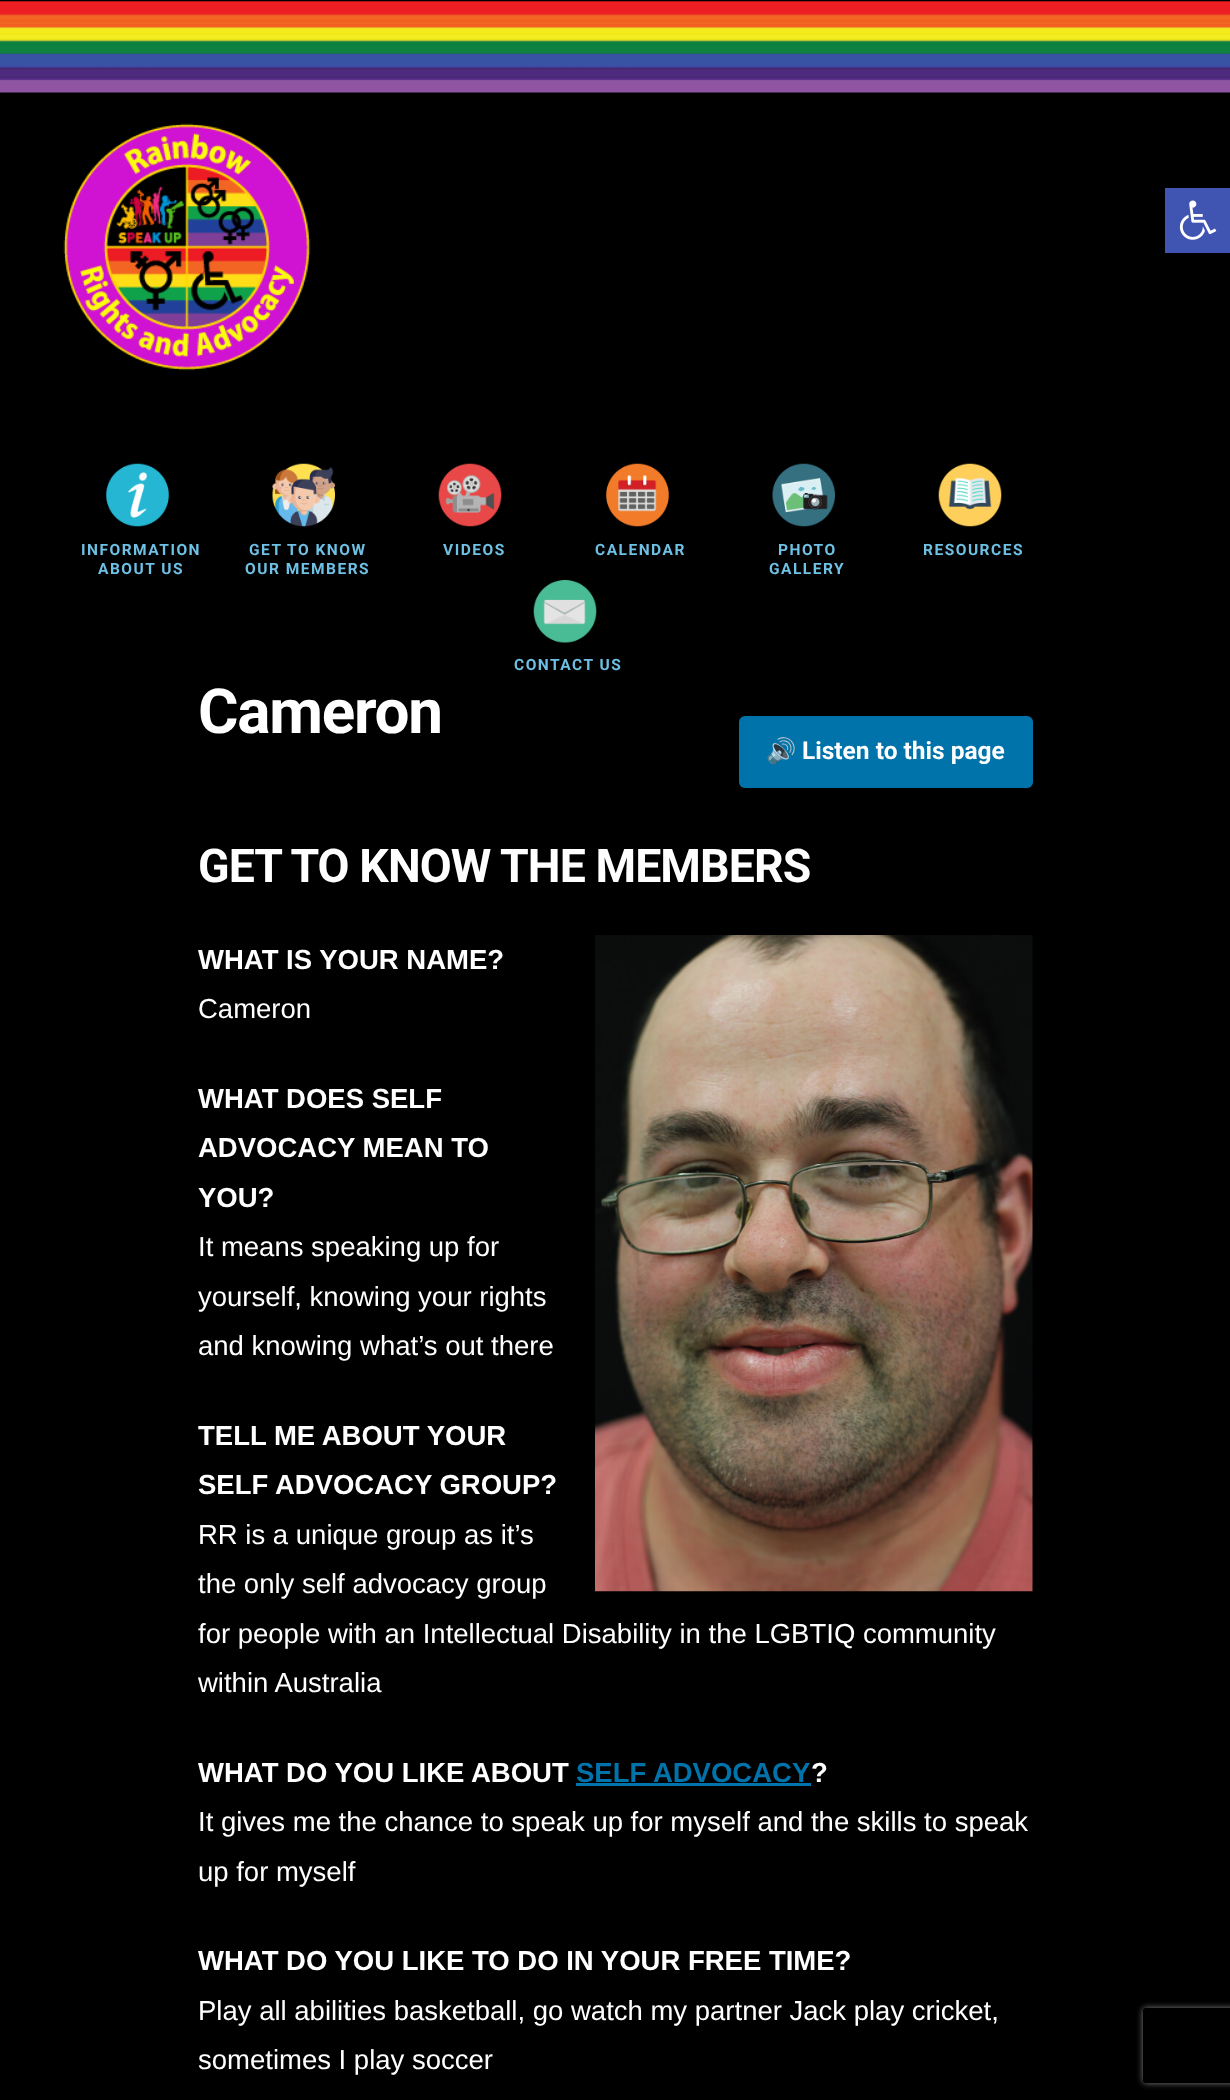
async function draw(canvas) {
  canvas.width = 1230;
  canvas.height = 2100;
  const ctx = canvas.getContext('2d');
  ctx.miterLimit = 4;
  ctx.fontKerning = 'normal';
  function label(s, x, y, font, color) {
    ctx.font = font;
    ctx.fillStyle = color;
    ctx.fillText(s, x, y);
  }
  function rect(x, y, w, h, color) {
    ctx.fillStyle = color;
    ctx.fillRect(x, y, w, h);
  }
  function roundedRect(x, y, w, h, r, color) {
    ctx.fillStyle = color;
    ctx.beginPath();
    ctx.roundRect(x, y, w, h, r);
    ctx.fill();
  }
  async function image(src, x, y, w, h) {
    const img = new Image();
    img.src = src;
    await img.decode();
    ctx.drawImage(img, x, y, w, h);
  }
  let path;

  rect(0, 0, 1230, 2100, '#000');
  rect(1165, 188, 65, 65, '#4054b2');
  await image('assets/img1.png', 1179, 200, 38, 40);
  await image('assets/img2.png', 0, 1, 1230, 92);
  await image('assets/img3.png', 63, 123, 248, 248);
  await image('assets/img4.png', 106, 463, 63, 64);
  ctx.letterSpacing = '1.5px';
  label('INFORMATION', 81, 555, 'bold 15.5px Roboto', '#6ec1e4');
  label('ABOUT US', 98, 574, 'bold 15.5px Roboto', '#6ec1e4');
  await image('assets/img5.png', 272, 463, 63, 64);
  label('GET TO KNOW', 249, 555, 'bold 15.5px Roboto', '#6ec1e4');
  label('OUR MEMBERS', 245, 574, 'bold 15.5px Roboto', '#6ec1e4');
  await image('assets/img6.png', 438, 463, 64, 64);
  label('VIDEOS', 443, 555, 'bold 15.5px Roboto', '#6ec1e4');
  await image('assets/img7.png', 606, 463, 63, 64);
  label('CALENDAR', 595, 555, 'bold 15.5px Roboto', '#6ec1e4');
  await image('assets/img8.png', 772, 463, 63, 64);
  label('PHOTO', 778, 555, 'bold 15.5px Roboto', '#6ec1e4');
  label('GALLERY', 769, 574, 'bold 15.5px Roboto', '#6ec1e4');
  await image('assets/img9.png', 938, 463, 64, 64);
  label('RESOURCES', 923, 555, 'bold 15.5px Roboto', '#6ec1e4');
  await image('assets/img10.png', 533, 580, 64, 63);
  label('CONTACT US', 514, 670, 'bold 15.5px Roboto', '#6ec1e4');
  ctx.letterSpacing = '-1.25px';
  label('Cameron', 198, 733, 'bold 62px Roboto', '#fff');
  roundedRect(739, 716, 294, 72, 6, '#0073aa');
  ctx.letterSpacing = '0px';
  label('🔊', 766, 759, 'bold 24.5px Noto Color Emoji', '#fff');
  label('Listen to this page', 802, 759, 'bold 24.5px Roboto', '#fff');
  ctx.letterSpacing = '-0.9px';
  label('GET TO KNOW THE MEMBERS', 198, 882, 'bold 46.4px Roboto', '#fff');
  ctx.letterSpacing = '0px';
  label('WHAT IS YOUR NAME?', 198, 969, 'bold 27.5px Liberation Sans', '#fff');
  label('Cameron', 198, 1018, '27.5px Liberation Sans', '#fff');
  await image('assets/img11.png', 595, 935, 438, 657);
  label('WHAT DOES SELF', 198, 1108, 'bold 27.5px Liberation Sans', '#fff');
  label('ADVOCACY MEAN TO', 198, 1157, 'bold 27.5px Liberation Sans', '#fff');
  label('YOU?', 198, 1207, 'bold 27.5px Liberation Sans', '#fff');
  label('It means speaking up for', 198, 1256, '27.5px Liberation Sans', '#fff');
  label('yourself, knowing your rights', 198, 1306, '27.5px Liberation Sans', '#fff');
  label('and knowing what’s out there', 198, 1355, '27.5px Liberation Sans', '#fff');
  label('TELL ME ABOUT YOUR', 198, 1445, 'bold 27.5px Liberation Sans', '#fff');
  label('SELF ADVOCACY GROUP?', 198, 1494, 'bold 27.5px Liberation Sans', '#fff');
  label('RR is a unique group as it’s', 198, 1544, '27.5px Liberation Sans', '#fff');
  label('the only self advocacy group', 198, 1593, '27.5px Liberation Sans', '#fff');
  label('for people with an Intellectual Disability in the LGBTIQ community', 198, 1643, '27.5px Liberation Sans', '#fff');
  label('within Australia', 198, 1692, '27.5px Liberation Sans', '#fff');
  label('WHAT DO YOU LIKE ABOUT', 198, 1782, 'bold 27.5px Liberation Sans', '#fff');
  label('SELF ADVOCACY', 576, 1782, 'bold 27.5px Liberation Sans', '#0073aa');
  rect(576, 1783, 235, 3, '#0073aa');
  label('?', 811, 1782, 'bold 27.5px Liberation Sans', '#fff');
  label('It gives me the chance to speak up for myself and the skills to speak', 198, 1831, '27.5px Liberation Sans', '#fff');
  label('up for myself', 198, 1881, '27.5px Liberation Sans', '#fff');
  label('WHAT DO YOU LIKE TO DO IN YOUR FREE TIME?', 198, 1970, 'bold 27.5px Liberation Sans', '#fff');
  label('Play all abilities basketball, go watch my partner Jack play cricket,', 198, 2020, '27.5px Liberation Sans', '#fff');
  label('sometimes I play soccer', 198, 2069, '27.5px Liberation Sans', '#fff');
  ctx.save();
  path = new Path2D('M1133 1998H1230V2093H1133ZM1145.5 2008H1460.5C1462 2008 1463 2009 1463 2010.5V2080.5C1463 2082 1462 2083 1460.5 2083H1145.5C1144 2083 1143 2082 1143 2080.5V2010.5C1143 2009 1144 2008 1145.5 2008Z');
  ctx.clip(path, 'evenodd');
  ctx.fillStyle = '#808080';
  ctx.filter = 'blur(3px)';
  ctx.beginPath();
  ctx.roundRect(1143, 2008, 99, 75, 2.5);
  ctx.fill();
  ctx.filter = 'none';
  ctx.restore();
}

draw(document.querySelector('canvas'));
